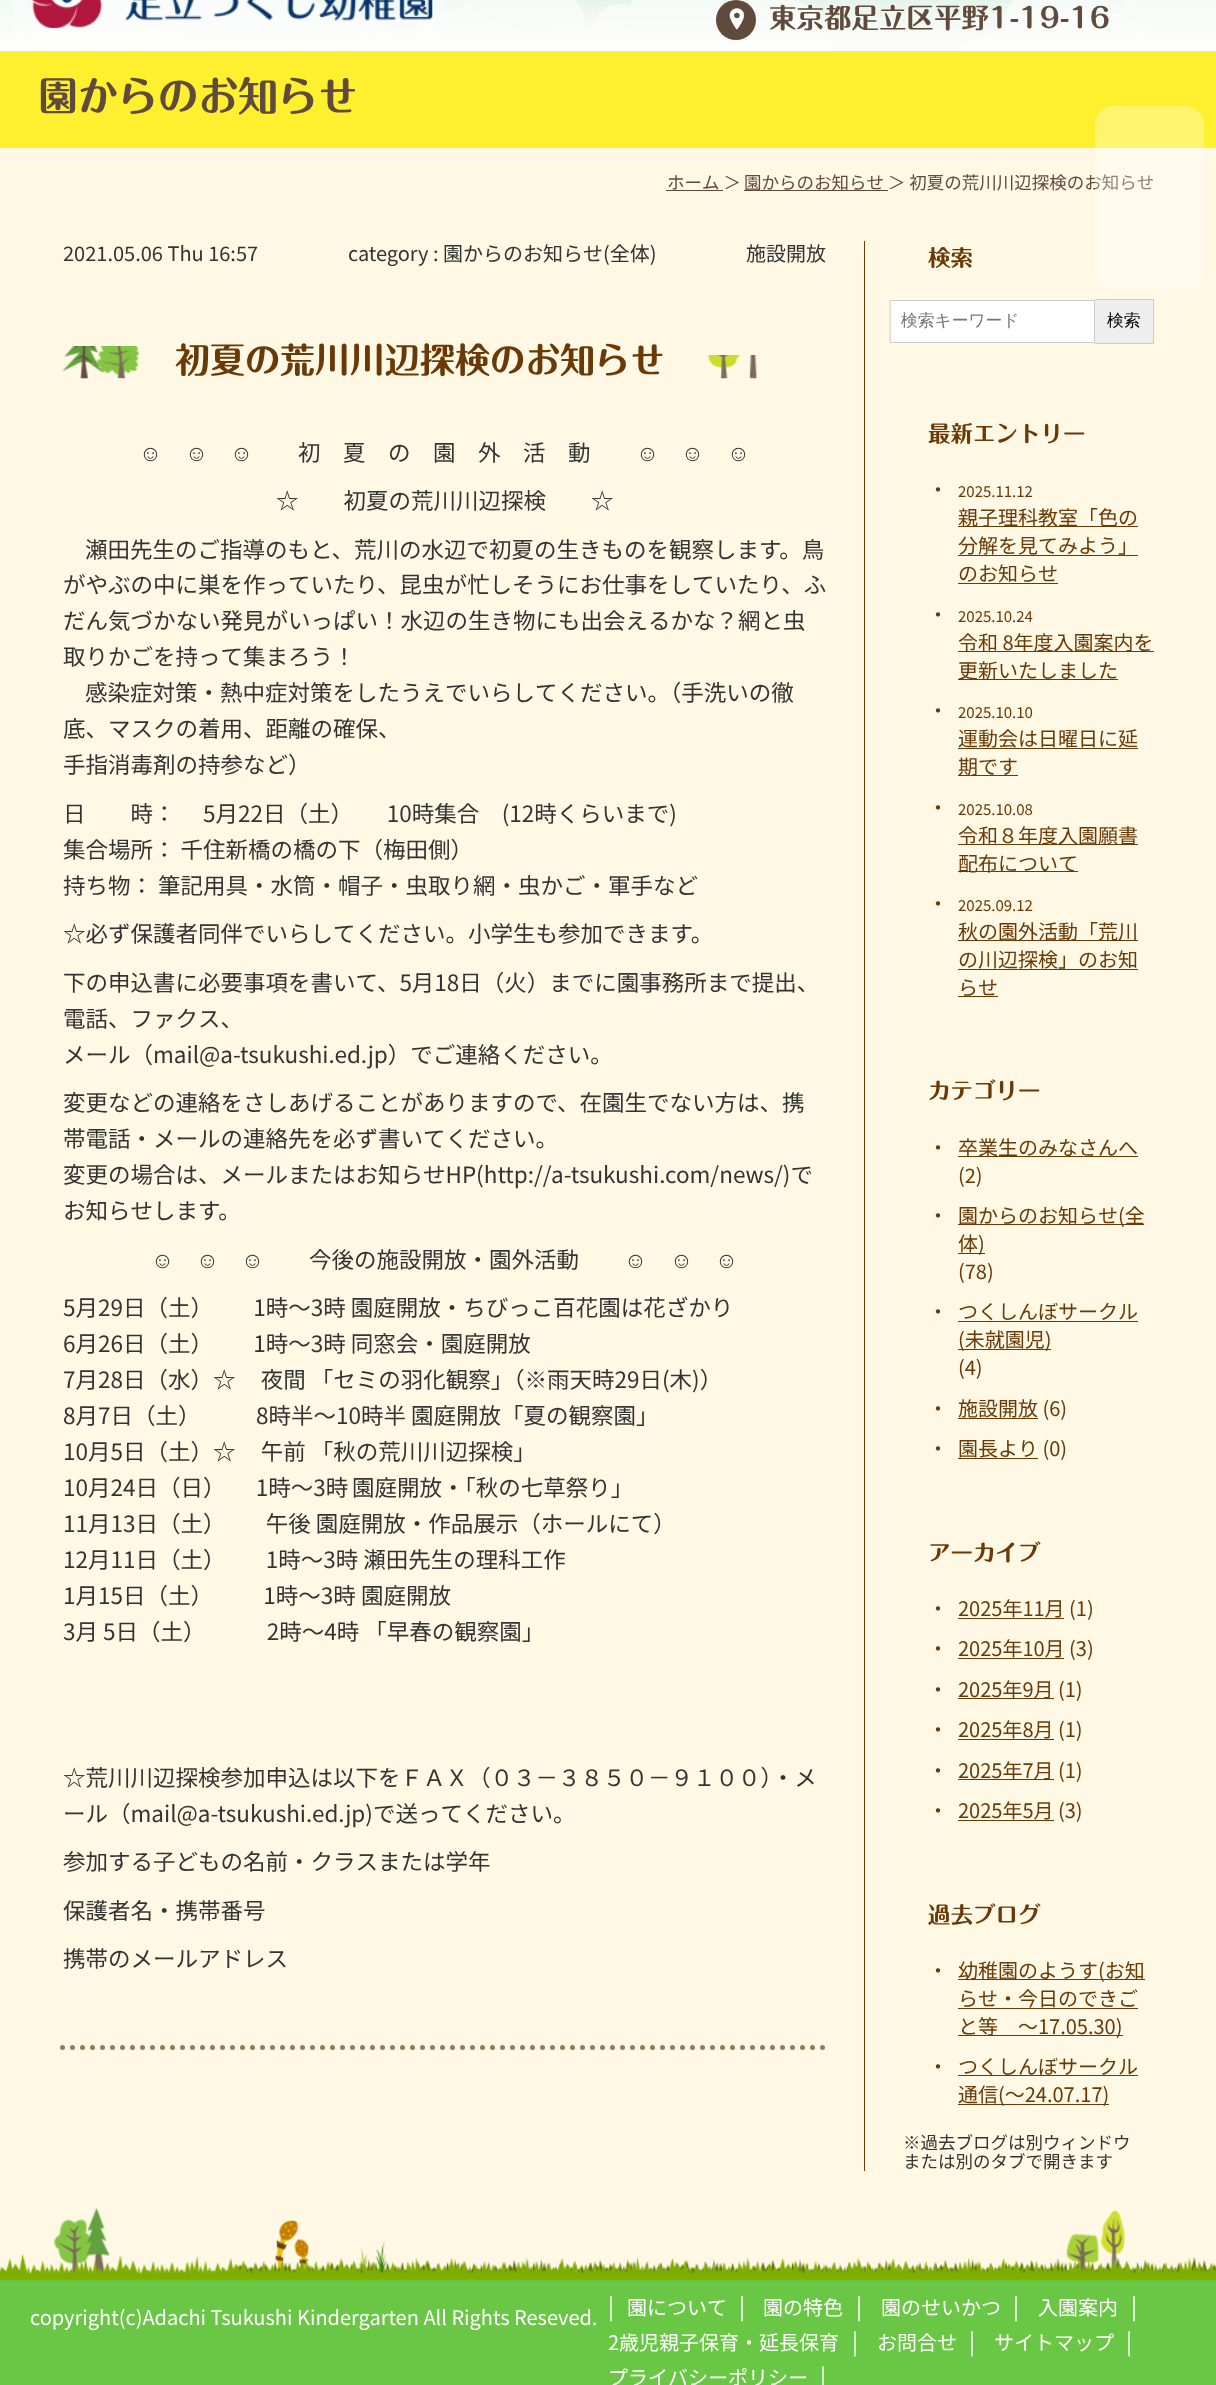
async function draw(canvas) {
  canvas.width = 1216;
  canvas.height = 2385;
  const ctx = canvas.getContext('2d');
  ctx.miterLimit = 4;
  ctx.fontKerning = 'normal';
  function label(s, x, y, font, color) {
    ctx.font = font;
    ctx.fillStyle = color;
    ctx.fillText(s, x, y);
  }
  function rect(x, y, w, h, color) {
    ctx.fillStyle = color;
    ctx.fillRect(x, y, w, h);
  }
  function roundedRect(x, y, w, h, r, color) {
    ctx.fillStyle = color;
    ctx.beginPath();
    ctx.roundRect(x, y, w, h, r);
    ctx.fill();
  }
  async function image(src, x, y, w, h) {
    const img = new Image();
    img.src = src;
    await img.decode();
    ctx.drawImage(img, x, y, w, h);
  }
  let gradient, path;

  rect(0, 0, 1216, 2385, '#fff8e5');
  await image('assets/img1.png', 0, 0, 1216, 51);
  gradient = ctx.createLinearGradient(608, -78, 608, 58);
  gradient.addColorStop(0, '#00000000');
  gradient.addColorStop(0.38, '#ffffff00');
  gradient.addColorStop(1, '#fff');
  ctx.fillStyle = gradient;
  ctx.fillRect(0, 0, 1216, 51);
  roundedRect(13, -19, 432, 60, 19, '#ffffff4d');
  await image('assets/img2.png', 31, 0, 402, 28);
  ctx.fillStyle = '#604a3c';
  ctx.beginPath();
  ctx.arc(736, 20, 20, 0, 2 * Math.PI);
  ctx.fill();
  await image('assets/img3.png', 729, 8, 16, 22);
  label('東京都足立区平野1-19-16', 769, 28, 'bold 27.5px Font', '#604a3c');
  rect(0, 51, 1216, 97, '#fff02f');
  label('園からのお知らせ', 38, 111, 'bold 40px Font', '#604a3c');
  rect(744, 190, 144, 1, '#604a3c');
  label('園からのお知らせ ＞ 初夏の荒川川辺探検のお知らせ', 744, 189, '17.5px Noto Sans JP', '#604a3c');
  roundedRect(1095, 106, 109, 184, 19, '#ffffff4d');
  label('ホーム ＞', 667, 189, '17.5px Noto Sans JP', '#604a3c');
  rect(666, 190, 57, 1, '#604a3c');
  path = new Path2D('M62.5 2047.5H826');
  ctx.strokeStyle = '#9a7958';
  ctx.lineWidth = 5;
  ctx.lineCap = 'round';
  ctx.setLineDash([0, 10]);
  ctx.stroke(path);
  label('2021.05.06 Thu 16:57', 63, 261, '20px Noto Sans JP', '#333');
  label('category : 園からのお知らせ(全体)', 348, 261, '20px Noto Sans JP', '#333');
  label('施設開放', 746, 261, '20px Noto Sans JP', '#333');
  await image('assets/img4.png', 62, 346, 77, 33);
  label('初夏の荒川川辺探検のお知らせ', 175, 373, 'bold 35px Font', '#6a3906');
  await image('assets/img5.png', 707, 355, 50, 24);
  label('☺', 139, 461, '22.5px Liberation Serif', '#333');
  label('☺', 185, 461, '22.5px Liberation Serif', '#333');
  label('☺', 230, 461, '22.5px Liberation Serif', '#333');
  label('初　夏　の　園　外　活　動', 298, 461, '22.5px Noto Sans JP', '#333');
  label('☺', 636, 461, '22.5px Liberation Serif', '#333');
  label('☺', 681, 461, '22.5px Liberation Serif', '#333');
  label('☺', 727, 461, '22.5px Liberation Serif', '#333');
  label('☆　　初夏の荒川川辺探検　　☆', 276, 509, '22.5px Noto Sans JP', '#333');
  label('瀬田先生のご指導のもと、荒川の水辺で初夏の生きものを観察します。鳥', 85, 558, '22.5px Noto Sans JP', '#333');
  label('がやぶの中に巣を作っていたり、昆虫が忙しそうにお仕事をしていたり、ふ', 63, 593, '22.5px Noto Sans JP', '#333');
  label('だん気づかない発見がいっぱい！水辺の生き物にも出会えるかな？網と虫', 63, 629, '22.5px Noto Sans JP', '#333');
  label('取りかごを持って集まろう！', 63, 665, '22.5px Noto Sans JP', '#333');
  label('感染症対策・熱中症対策をしたうえでいらしてください。（手洗いの徹', 85, 701, '22.5px Noto Sans JP', '#333');
  label('底、マスクの着用、距離の確保、', 63, 737, '22.5px Noto Sans JP', '#333');
  label('手指消毒剤の持参など）', 63, 773, '22.5px Noto Sans JP', '#333');
  label('日　　時：　 5月22日（土）　　10時集合　(12時くらいまで)', 63, 822, '22.5px Noto Sans JP', '#333');
  label('集合場所： 千住新橋の橋の下（梅田側）', 63, 858, '22.5px Noto Sans JP', '#333');
  label('持ち物： 筆記用具・水筒・帽子・虫取り網・虫かご・軍手など', 63, 894, '22.5px Noto Sans JP', '#333');
  label('☆必ず保護者同伴でいらしてください。小学生も参加できます。', 63, 942, '22.5px Noto Sans JP', '#333');
  label('下の申込書に必要事項を書いて、5月18日（火）までに園事務所まで提出、', 63, 991, '22.5px Noto Sans JP', '#333');
  label('電話、ファクス、', 63, 1027, '22.5px Noto Sans JP', '#333');
  label('メール（mail@a-tsukushi.ed.jp）でご連絡ください。', 63, 1063, '22.5px Noto Sans JP', '#333');
  label('変更などの連絡をさしあげることがありますので、在園生でない方は、携', 63, 1111, '22.5px Noto Sans JP', '#333');
  label('帯電話・メールの連絡先を必ず書いてください。', 63, 1147, '22.5px Noto Sans JP', '#333');
  label('変更の場合は、メールまたはお知らせHP(http://a-tsukushi.com/news/)で', 63, 1183, '22.5px Noto Sans JP', '#333');
  label('お知らせします。', 63, 1219, '22.5px Noto Sans JP', '#333');
  label('☺', 151, 1268, '22.5px Liberation Serif', '#333');
  label('☺', 196, 1268, '22.5px Liberation Serif', '#333');
  label('☺', 241, 1268, '22.5px Liberation Serif', '#333');
  label('今後の施設開放・園外活動', 309, 1268, '22.5px Noto Sans JP', '#333');
  label('☺', 624, 1268, '22.5px Liberation Serif', '#333');
  label('☺', 670, 1268, '22.5px Liberation Serif', '#333');
  label('☺', 715, 1268, '22.5px Liberation Serif', '#333');
  label('5月29日（土）        1時～3時 園庭開放・ちびっこ百花園は花ざかり', 63, 1316, '22.5px Noto Sans JP', '#333');
  label('6月26日（土）        1時～3時 同窓会・園庭開放', 63, 1352, '22.5px Noto Sans JP', '#333');
  label('7月28日（水）☆     夜間 「セミの羽化観察」（※雨天時29日(木)）', 63, 1388, '22.5px Noto Sans JP', '#333');
  label('8月7日（土）           8時半～10時半 園庭開放「夏の観察園」', 63, 1424, '22.5px Noto Sans JP', '#333');
  label('10月5日（土）☆     午前 「秋の荒川川辺探検」', 63, 1460, '22.5px Noto Sans JP', '#333');
  ctx.wordSpacing = '-1.25px';
  label('10月24日（日）        1時～3時 園庭開放・「秋の七草祭り」', 63, 1496, '22.5px Noto Sans JP', '#333');
  ctx.wordSpacing = '0px';
  label('11月13日（土）        午後 園庭開放・作品展示（ホールにて）', 63, 1532, '22.5px Noto Sans JP', '#333');
  label('12月11日（土）        1時～3時 瀬田先生の理科工作', 63, 1568, '22.5px Noto Sans JP', '#333');
  label('1月15日（土）          1時～3時 園庭開放', 63, 1604, '22.5px Noto Sans JP', '#333');
  label('3月 5日（土）　　　 2時～4時 「早春の観察園」', 63, 1640, '22.5px Noto Sans JP', '#333');
  label('☆荒川川辺探検参加申込は以下をＦＡＸ（０３－３８５０－９１００）・メ', 63, 1786, '22.5px Noto Sans JP', '#333');
  label('ール（mail@a-tsukushi.ed.jp)で送ってください。', 63, 1822, '22.5px Noto Sans JP', '#333');
  label('参加する子どもの名前・クラスまたは学年', 63, 1870, '22.5px Noto Sans JP', '#333');
  label('保護者名・携帯番号', 63, 1919, '22.5px Noto Sans JP', '#333');
  label('携帯のメールアドレス', 63, 1967, '22.5px Noto Sans JP', '#333');
  rect(864, 241, 1, 1930, '#6a3906');
  label('検索', 928, 266, 'bold 22.5px Font', '#6a3906');
  ctx.fillStyle = '#fff';
  ctx.beginPath();
  ctx.rect(890.5, 300.5, 204, 42);
  ctx.fill();
  ctx.strokeStyle = '#ccc';
  ctx.lineWidth = 1;
  ctx.setLineDash([]);
  ctx.stroke();
  label('検索キーワード', 901, 326, '500 16.75px WenQuanYi Zen Hei', '#757575');
  rect(1095, 300, 58, 43, '#eee');
  rect(1095, 299, 59, 1, '#ccc');
  rect(1153, 299, 1, 45, '#ccc');
  rect(1095, 343, 59, 1, '#ccc');
  label('検索', 1107, 326, '500 16.75px WenQuanYi Zen Hei', '#000');
  label('最新エントリー', 928, 442, 'bold 22.5px Font', '#6a3906');
  label('・', 928, 497, '20px Noto Sans JP', '#6a3906');
  label('2025.11.12', 958, 497, '15px Noto Sans JP', '#6a3906');
  rect(958, 526, 180, 1, '#6a3906');
  label('親子理科教室「色の', 958, 525, '20px Noto Sans JP', '#6a3906');
  label('分解を見てみよう」', 958, 553, '20px Noto Sans JP', '#6a3906');
  rect(958, 555, 180, 1, '#6a3906');
  label('のお知らせ', 958, 581, '20px Noto Sans JP', '#6a3906');
  rect(958, 583, 100, 1, '#6a3906');
  label('・', 928, 622, '20px Noto Sans JP', '#6a3906');
  label('2025.10.24', 958, 622, '15px Noto Sans JP', '#6a3906');
  rect(958, 651, 196, 1, '#6a3906');
  label('令和 8年度入園案内を', 958, 650, '20px Noto Sans JP', '#6a3906');
  rect(958, 679, 160, 1, '#6a3906');
  label('更新いたしました', 958, 678, '20px Noto Sans JP', '#6a3906');
  label('・', 928, 718, '20px Noto Sans JP', '#6a3906');
  label('2025.10.10', 958, 718, '15px Noto Sans JP', '#6a3906');
  label('運動会は日曜日に延', 958, 746, '20px Noto Sans JP', '#6a3906');
  rect(958, 748, 180, 1, '#6a3906');
  rect(958, 775, 60, 1, '#6a3906');
  label('期です', 958, 774, '20px Noto Sans JP', '#6a3906');
  label('・', 928, 815, '20px Noto Sans JP', '#6a3906');
  label('2025.10.08', 958, 815, '15px Noto Sans JP', '#6a3906');
  rect(958, 844, 180, 1, '#6a3906');
  label('令和８年度入園願書', 958, 843, '20px Noto Sans JP', '#6a3906');
  rect(958, 871, 120, 1, '#6a3906');
  label('配布について', 958, 871, '20px Noto Sans JP', '#6a3906');
  label('・', 928, 911, '20px Noto Sans JP', '#6a3906');
  label('2025.09.12', 958, 911, '15px Noto Sans JP', '#6a3906');
  rect(958, 940, 180, 1, '#6a3906');
  label('秋の園外活動「荒川', 958, 939, '20px Noto Sans JP', '#6a3906');
  label('の川辺探検」のお知', 958, 967, '20px Noto Sans JP', '#6a3906');
  rect(958, 969, 180, 1, '#6a3906');
  label('らせ', 958, 995, '20px Noto Sans JP', '#6a3906');
  rect(958, 996, 40, 1, '#6a3906');
  label('カテゴリー', 928, 1099, 'bold 22.5px Font', '#6a3906');
  label('・', 928, 1155, '20px Noto Sans JP', '#6a3906');
  rect(958, 1156, 180, 1, '#6a3906');
  label('卒業生のみなさんへ', 958, 1155, '20px Noto Sans JP', '#6a3906');
  label('(2)', 958, 1183, '20px Noto Sans JP', '#6a3906');
  label('・', 928, 1223, '20px Noto Sans JP', '#6a3906');
  rect(958, 1224, 186, 1, '#6a3906');
  label('園からのお知らせ(全', 958, 1223, '20px Noto Sans JP', '#6a3906');
  rect(958, 1253, 27, 1, '#6a3906');
  label('体)', 958, 1251, '20px Noto Sans JP', '#6a3906');
  label('(78)', 958, 1279, '20px Noto Sans JP', '#6a3906');
  label('・', 928, 1319, '20px Noto Sans JP', '#6a3906');
  label('つくしんぼサークル', 958, 1319, '20px Noto Sans JP', '#6a3906');
  rect(958, 1321, 180, 1, '#6a3906');
  rect(958, 1349, 93, 1, '#6a3906');
  label('(未就園児)', 958, 1347, '20px Noto Sans JP', '#6a3906');
  label('(4)', 958, 1375, '20px Noto Sans JP', '#6a3906');
  label('・', 928, 1416, '20px Noto Sans JP', '#6a3906');
  rect(958, 1418, 80, 1, '#6a3906');
  label('施設開放 (6)', 958, 1416, '20px Noto Sans JP', '#6a3906');
  label('・', 928, 1456, '20px Noto Sans JP', '#6a3906');
  rect(958, 1458, 80, 1, '#6a3906');
  label('園長より (0)', 958, 1456, '20px Noto Sans JP', '#6a3906');
  label('アーカイブ', 928, 1561, 'bold 22.5px Font', '#6a3906');
  label('・', 928, 1616, '20px Noto Sans JP', '#6a3906');
  rect(958, 1618, 106, 1, '#6a3906');
  label('2025年11月 (1)', 958, 1616, '20px Noto Sans JP', '#6a3906');
  label('・', 928, 1656, '20px Noto Sans JP', '#6a3906');
  rect(958, 1658, 106, 1, '#6a3906');
  label('2025年10月 (3)', 958, 1656, '20px Noto Sans JP', '#6a3906');
  label('・', 928, 1697, '20px Noto Sans JP', '#6a3906');
  rect(958, 1698, 96, 1, '#6a3906');
  label('2025年9月 (1)', 958, 1697, '20px Noto Sans JP', '#6a3906');
  label('・', 928, 1737, '20px Noto Sans JP', '#6a3906');
  rect(958, 1739, 96, 1, '#6a3906');
  label('2025年8月 (1)', 958, 1737, '20px Noto Sans JP', '#6a3906');
  label('・', 928, 1778, '20px Noto Sans JP', '#6a3906');
  rect(958, 1779, 96, 1, '#6a3906');
  label('2025年7月 (1)', 958, 1778, '20px Noto Sans JP', '#6a3906');
  label('・', 928, 1818, '20px Noto Sans JP', '#6a3906');
  rect(958, 1820, 96, 1, '#6a3906');
  label('2025年5月 (3)', 958, 1818, '20px Noto Sans JP', '#6a3906');
  label('過去ブログ', 928, 1923, 'bold 22.5px Font', '#6a3906');
  label('・', 928, 1978, '20px Noto Sans JP', '#6a3906');
  rect(958, 1979, 187, 1, '#6a3906');
  label('幼稚園のようす(お知', 958, 1978, '20px Noto Sans JP', '#6a3906');
  label('らせ・今日のできご', 958, 2006, '20px Noto Sans JP', '#6a3906');
  rect(958, 2008, 180, 1, '#6a3906');
  rect(958, 2035, 165, 1, '#6a3906');
  label('と等　～17.05.30)', 958, 2034, '20px Noto Sans JP', '#6a3906');
  label('・', 928, 2074, '20px Noto Sans JP', '#6a3906');
  rect(958, 2075, 180, 1, '#6a3906');
  label('つくしんぼサークル', 958, 2074, '20px Noto Sans JP', '#6a3906');
  rect(958, 2104, 151, 1, '#6a3906');
  label('通信(～24.07.17)', 958, 2102, '20px Noto Sans JP', '#6a3906');
  label('※過去ブログは別ウィンドウ', 903, 2149, '17.5px Noto Sans JP', '#333');
  label('または別のタブで開きます', 903, 2168, '17.5px Noto Sans JP', '#333');
  await image('assets/img6.png', 0, 2208, 1216, 177);
  label('copyright(c)Adachi Tsukushi Kindergarten All Rights Reseved.', 30, 2325, '20px Noto Sans JP', '#fff');
  label('|', 608, 2315, '22.5px Noto Sans JP', '#fff');
  label('園について', 627, 2315, '20px Noto Sans JP', '#fff');
  label('|', 739, 2315, '22.5px Noto Sans JP', '#fff');
  label('園の特色', 763, 2315, '20px Noto Sans JP', '#fff');
  label('|', 856, 2315, '22.5px Noto Sans JP', '#fff');
  label('園のせいかつ', 881, 2315, '20px Noto Sans JP', '#fff');
  label('|', 1013, 2315, '22.5px Noto Sans JP', '#fff');
  label('入園案内', 1038, 2315, '20px Noto Sans JP', '#fff');
  label('|', 1131, 2315, '22.5px Noto Sans JP', '#fff');
  label('2歳児親子保育・延長保育', 608, 2350, '20px Noto Sans JP', '#fff');
  label('|', 852, 2350, '22.5px Noto Sans JP', '#fff');
  label('お問合せ', 877, 2350, '20px Noto Sans JP', '#fff');
  label('|', 969, 2350, '22.5px Noto Sans JP', '#fff');
  label('サイトマップ', 994, 2350, '20px Noto Sans JP', '#fff');
  label('|', 1126, 2350, '22.5px Noto Sans JP', '#fff');
  label('プライバシーポリシー', 608, 2385, '20px Noto Sans JP', '#fff');
  label('|', 820, 2385, '22.5px Noto Sans JP', '#fff');
}

draw(document.querySelector('canvas'));
